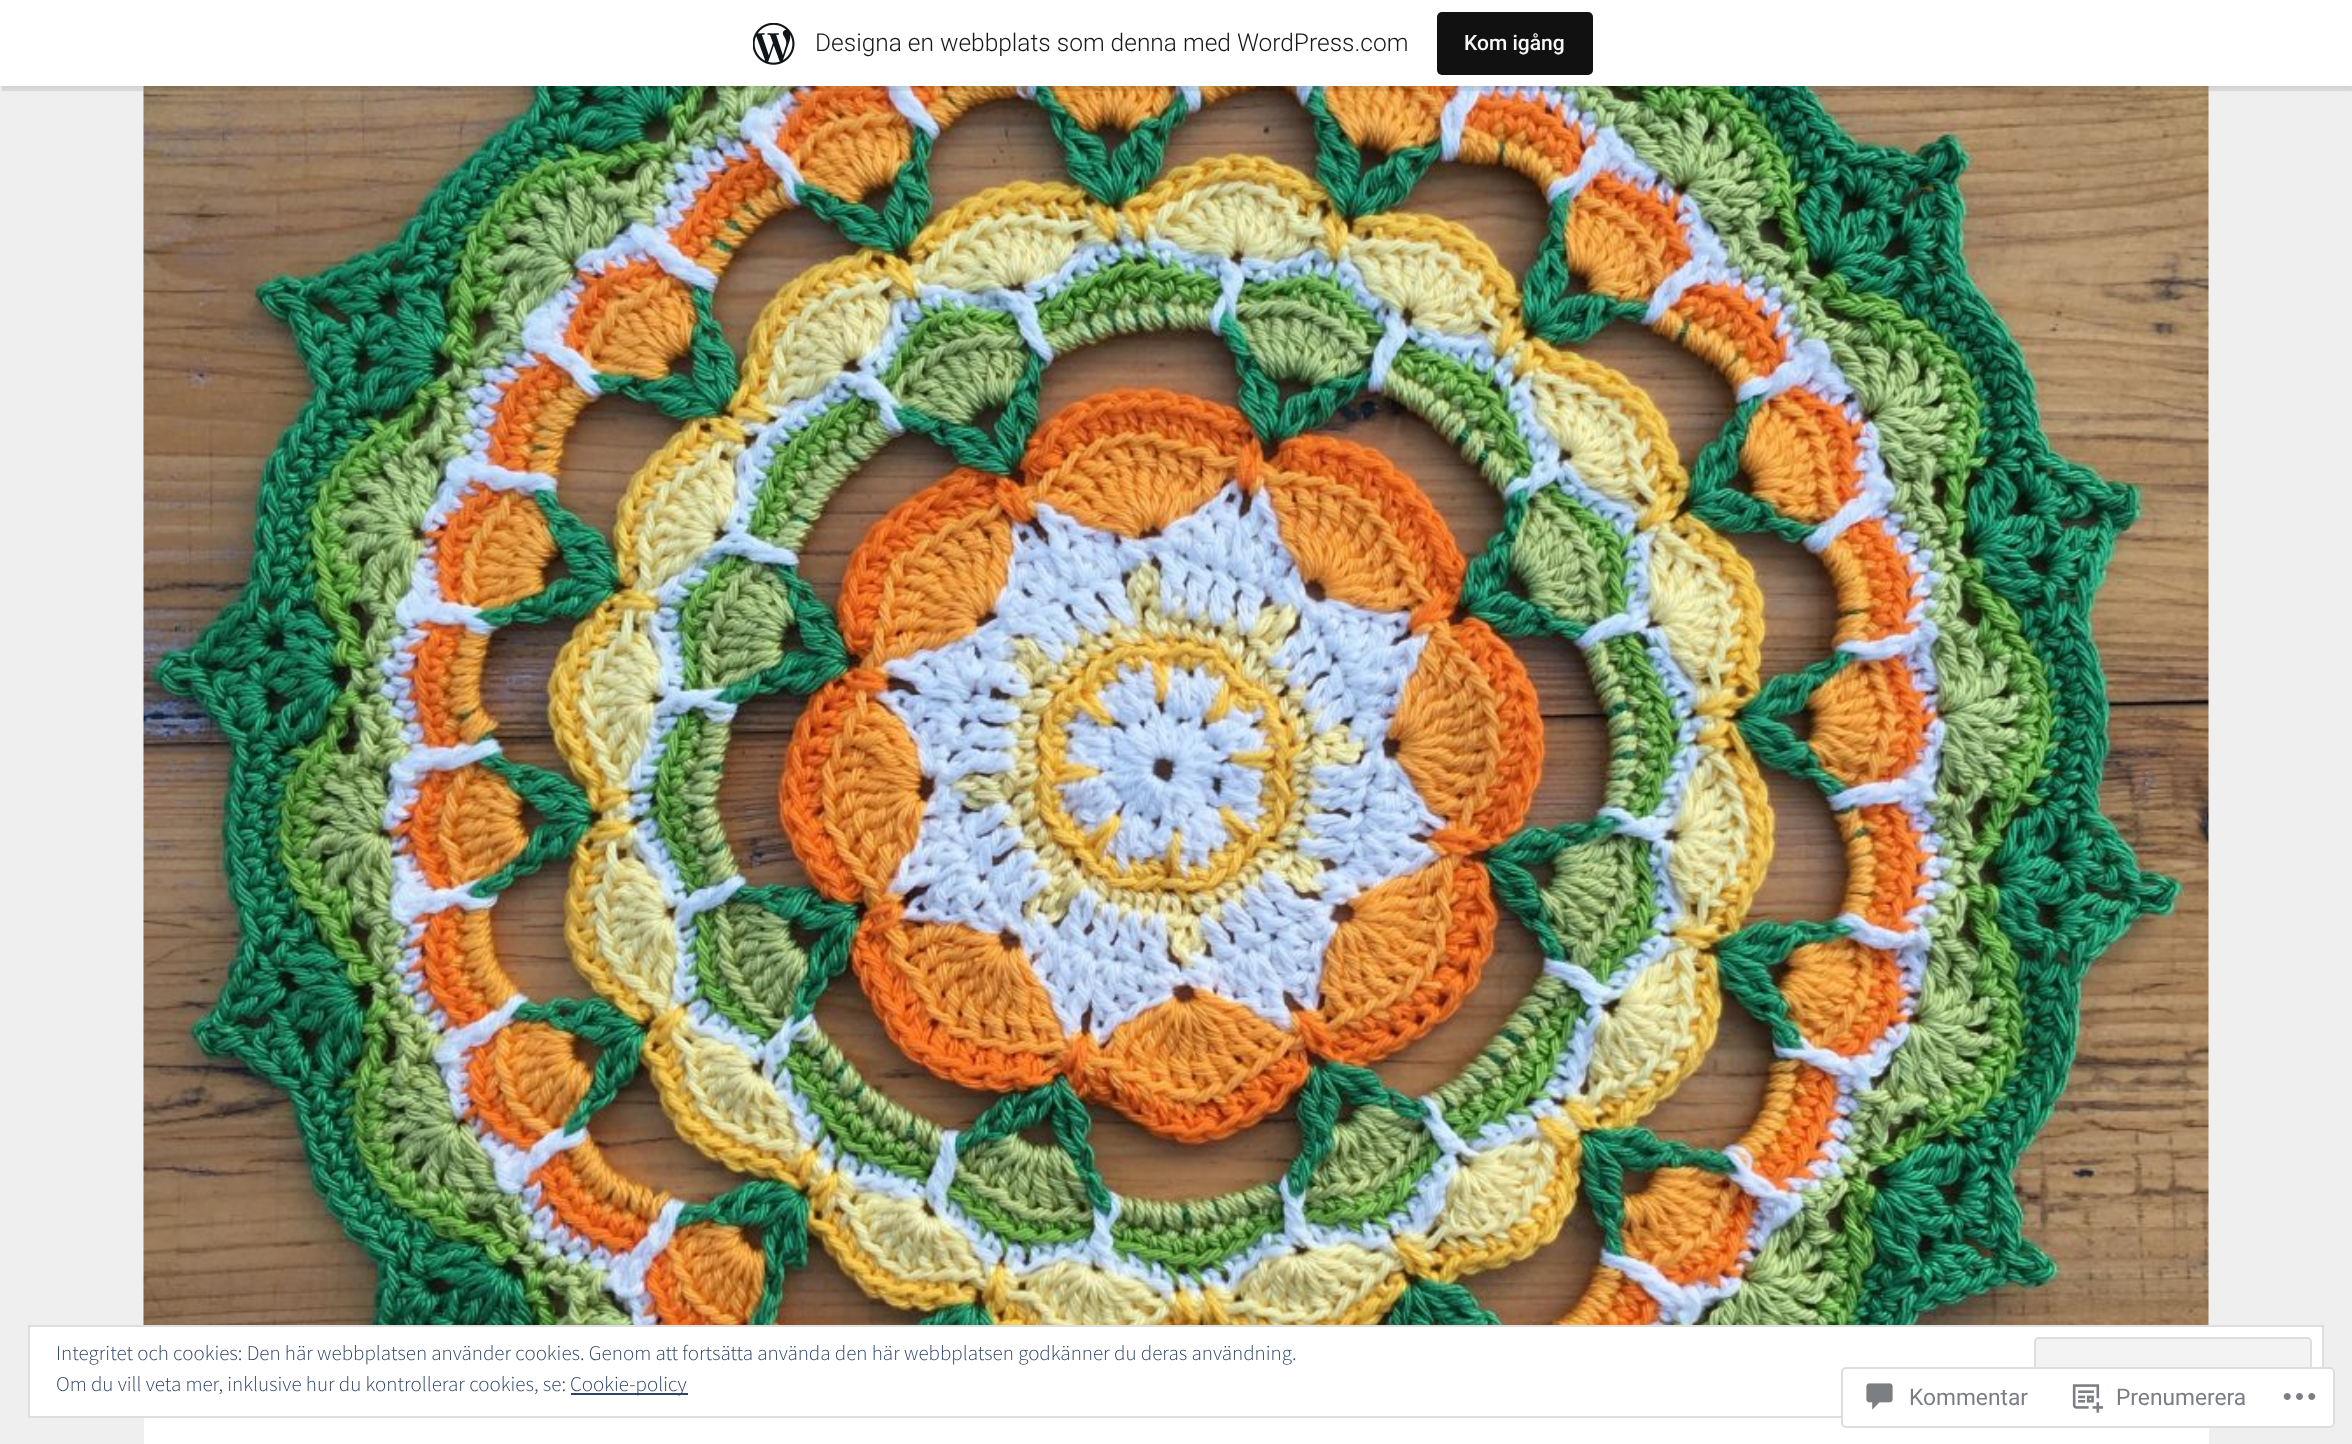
async function draw(canvas) {
  canvas.width = 2352;
  canvas.height = 1444;
  const ctx = canvas.getContext('2d');
  ctx.miterLimit = 4;
  ctx.fontKerning = 'normal';
  function label(s, x, y, font, color) {
    ctx.font = font;
    ctx.fillStyle = color;
    ctx.fillText(s, x, y);
  }
  function rect(x, y, w, h, color) {
    ctx.fillStyle = color;
    ctx.fillRect(x, y, w, h);
  }
  function roundedRect(x, y, w, h, r, color) {
    ctx.fillStyle = color;
    ctx.beginPath();
    ctx.roundRect(x, y, w, h, r);
    ctx.fill();
  }
  async function image(src, x, y, w, h) {
    const img = new Image();
    img.src = src;
    await img.decode();
    ctx.drawImage(img, x, y, w, h);
  }
  let path;

  rect(0, 0, 2352, 1444, '#efefef');
  await image('assets/img2.png', 143, 86, 2066, 1239);
  ctx.fillStyle = '#0000000d';
  ctx.filter = 'blur(2px)';
  ctx.beginPath();
  ctx.rect(0, 2, 2352, 86);
  ctx.fill();
  ctx.filter = 'none';
  ctx.fillStyle = '#00000014';
  path = new Path2D('M2 86V91H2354V5H2352V86Z');
  ctx.fill(path);
  rect(0, 0, 2352, 86, '#fff');
  await image('assets/img1.png', 753, 23, 42, 42);
  label('Designa en webbplats som denna med WordPress.com', 815, 51, '300 24.5px Roboto', '#171717');
  roundedRect(1437, 12, 156, 63, 5, '#111');
  label('Kom igång', 1464, 50, '500 21px Roboto', '#f6f7f7');
  rect(144, 1418, 2065, 26, '#fff');
  ctx.beginPath();
  ctx.rect(29, 1326, 2294, 91);
  ctx.fill();
  ctx.strokeStyle = '#dedede';
  ctx.lineWidth = 2;
  ctx.stroke();
  label('Integritet och cookies: Den här webbplatsen använder cookies. Genom att fortsätta använda den här webbplatsen godkänner du deras användning.', 56, 1360, '300 21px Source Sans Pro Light', '#2e4467');
  roundedRect(2034, 1337, 278, 68, 5, '#f3f3f3');
  ctx.fillStyle = '#dbdbdb';
  path = new Path2D('M2035 1396V1400C2035 1402 2037 1404 2039 1404H2306C2308 1404 2310 1402 2310 1400V1396C2310 1398 2308 1400 2306 1400H2039C2037 1400 2035 1398 2035 1396Z');
  ctx.fill(path);
  ctx.beginPath();
  ctx.roundRect(2035, 1338, 276, 66, 4);
  ctx.stroke();
  label('Om du vill veta mer, inklusive hur du kontrollerar cookies, se:', 56, 1391, '300 21px Source Sans Pro Light', '#2e4467');
  rect(571, 1393, 117, 2, '#2e4467');
  label('Cookie-policy', 570, 1391, '300 21px Source Sans Pro Light', '#2e4467');
  roundedRect(1841, 1367, 494, 61, 5, '#fffffffa');
  ctx.beginPath();
  ctx.roundRect(1842, 1368, 492, 59, 4);
  ctx.strokeStyle = '#dcdcdefa';
  ctx.stroke();
  await image('assets/img3.png', 1866, 1383, 27, 27);
  label('Kommentar', 1909, 1405, '22.75px Roboto', '#7b7f85');
  await image('assets/img4.png', 2072, 1384, 32, 29);
  label('Prenumerera', 2116, 1405, '22.75px Roboto', '#7b7f85');
  await image('assets/img5.png', 2283, 1393, 33, 7);
}

draw(document.querySelector('canvas'));
